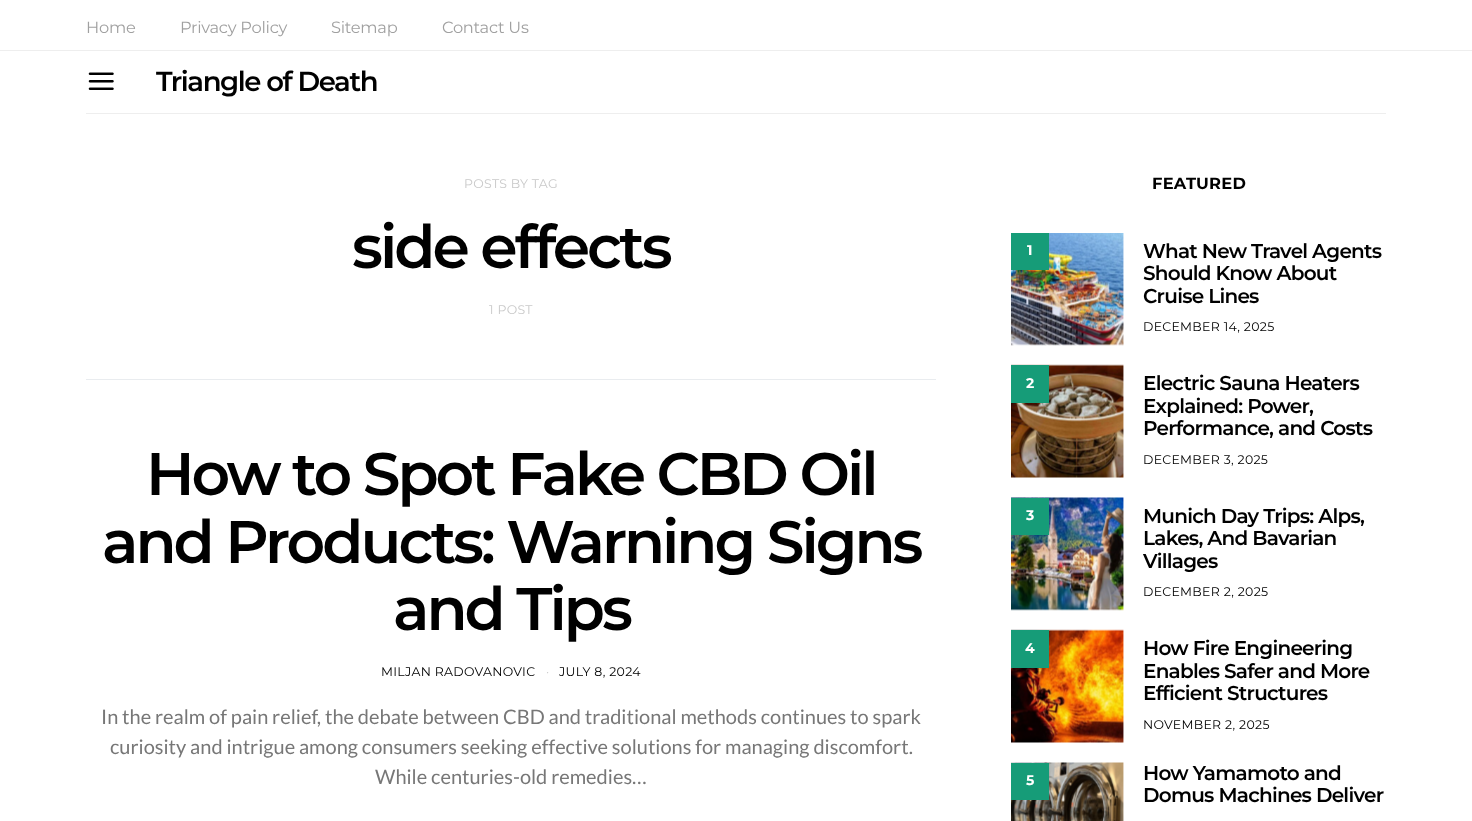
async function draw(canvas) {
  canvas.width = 1472;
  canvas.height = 821;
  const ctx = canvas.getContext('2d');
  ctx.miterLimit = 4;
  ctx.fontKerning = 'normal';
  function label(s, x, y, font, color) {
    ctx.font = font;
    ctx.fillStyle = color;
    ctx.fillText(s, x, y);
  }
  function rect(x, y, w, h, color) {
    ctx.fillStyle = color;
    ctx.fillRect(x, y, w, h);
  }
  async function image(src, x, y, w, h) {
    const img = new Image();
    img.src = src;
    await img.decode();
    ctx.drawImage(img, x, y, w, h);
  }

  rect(0, 0, 1472, 821, '#fff');
  rect(0, 50, 1472, 1, '#eee');
  ctx.letterSpacing = '-0.25px';
  label('Home', 86, 33, '16.25px Montserrat', '#a0a0a0');
  label('Privacy Policy', 180, 33, '16.25px Montserrat', '#a0a0a0');
  label('Sitemap', 331, 33, '16.25px Montserrat', '#a0a0a0');
  label('Contact Us', 442, 33, '16.25px Montserrat', '#a0a0a0');
  rect(86, 113, 1300, 1, '#eee');
  await image('assets/img1.png', 88, 72, 26, 18);
  ctx.letterSpacing = '-1.4px';
  label('Triangle of Death', 156, 91, '600 27.5px Montserrat', '#000');
  ctx.letterSpacing = '0.3px';
  label('POSTS BY TAG', 464, 188, '12.5px Montserrat', '#c9c9c9');
  ctx.letterSpacing = '-3px';
  label('side effects', 352, 268, '600 60px Montserrat', '#000');
  ctx.letterSpacing = '0.3px';
  label('1 POST', 489, 314, '12.5px Montserrat', '#c9c9c9');
  rect(86, 379, 850, 1, '#e9ecef');
  ctx.letterSpacing = '-3px';
  label('How to Spot Fake CBD Oil', 146, 495, '600 60px Montserrat', '#000');
  label('and Products: Warning Signs', 102, 563, '600 60px Montserrat', '#000');
  label('and Tips', 393, 630, '600 60px Montserrat', '#000');
  ctx.letterSpacing = '0.3px';
  label('MILJAN RADOVANOVIC', 381, 676, '12.5px Montserrat', '#000');
  label('·', 546, 676, '12.5px Montserrat', '#c9c9c9');
  label('JULY 8, 2024', 559, 676, '12.5px Montserrat', '#000');
  ctx.letterSpacing = '0px';
  label('In the realm of pain relief, the debate between CBD and traditional methods continues to spark', 101, 724, '20px Lato', '#777');
  label('curiosity and intrigue among consumers seeking effective solutions for managing discomfort.', 110, 754, '20px Lato', '#777');
  label('While centuries-old remedies…', 375, 784, '20px Lato', '#777');
  ctx.letterSpacing = '0.25px';
  label('FEATURED', 1152, 189, 'bold 16.25px Montserrat', '#000');
  await image('assets/img2.png', 1011, 233, 113, 113);
  rect(1011, 233, 38, 37, '#169c78');
  ctx.letterSpacing = '0px';
  label('1', 1027, 255, 'bold 14px Montserrat', '#fff');
  ctx.letterSpacing = '-0.75px';
  label('What New Travel Agents', 1143, 258, '600 20px Montserrat', '#000');
  label('Should Know About', 1143, 280, '600 20px Montserrat', '#000');
  label('Cruise Lines', 1143, 303, '600 20px Montserrat', '#000');
  ctx.letterSpacing = '0.3px';
  label('DECEMBER 14, 2025', 1143, 331, '12.5px Montserrat', '#000');
  await image('assets/img3.png', 1011, 364, 113, 114);
  rect(1011, 365, 38, 38, '#169c78');
  ctx.letterSpacing = '0px';
  label('2', 1026, 388, 'bold 14px Montserrat', '#fff');
  ctx.letterSpacing = '-0.75px';
  label('Electric Sauna Heaters', 1143, 390, '600 20px Montserrat', '#000');
  label('Explained: Power,', 1143, 413, '600 20px Montserrat', '#000');
  label('Performance, and Costs', 1143, 435, '600 20px Montserrat', '#000');
  ctx.letterSpacing = '0.3px';
  label('DECEMBER 3, 2025', 1143, 464, '12.5px Montserrat', '#000');
  await image('assets/img4.png', 1011, 497, 113, 114);
  rect(1011, 498, 38, 37, '#169c78');
  ctx.letterSpacing = '0px';
  label('3', 1026, 520, 'bold 14px Montserrat', '#fff');
  ctx.letterSpacing = '-0.75px';
  label('Munich Day Trips: Alps,', 1143, 523, '600 20px Montserrat', '#000');
  label('Lakes, And Bavarian', 1143, 545, '600 20px Montserrat', '#000');
  label('Villages', 1143, 568, '600 20px Montserrat', '#000');
  ctx.letterSpacing = '0.3px';
  label('DECEMBER 2, 2025', 1143, 596, '12.5px Montserrat', '#000');
  await image('assets/img5.png', 1011, 629, 113, 114);
  rect(1011, 630, 38, 38, '#169c78');
  ctx.letterSpacing = '0px';
  label('4', 1025, 653, 'bold 14px Montserrat', '#fff');
  ctx.letterSpacing = '-0.75px';
  label('How Fire Engineering', 1143, 655, '600 20px Montserrat', '#000');
  label('Enables Safer and More', 1143, 678, '600 20px Montserrat', '#000');
  label('Efficient Structures', 1143, 700, '600 20px Montserrat', '#000');
  ctx.letterSpacing = '0.3px';
  label('NOVEMBER 2, 2025', 1143, 729, '12.5px Montserrat', '#000');
  await image('assets/img6.png', 1011, 762, 113, 59);
  rect(1011, 763, 38, 37, '#169c78');
  ctx.letterSpacing = '0px';
  label('5', 1026, 785, 'bold 14px Montserrat', '#fff');
  ctx.letterSpacing = '-0.75px';
  label('How Yamamoto and', 1143, 780, '600 20px Montserrat', '#000');
  label('Domus Machines Deliver', 1143, 802, '600 20px Montserrat', '#000');
}

draw(document.querySelector('canvas'));
